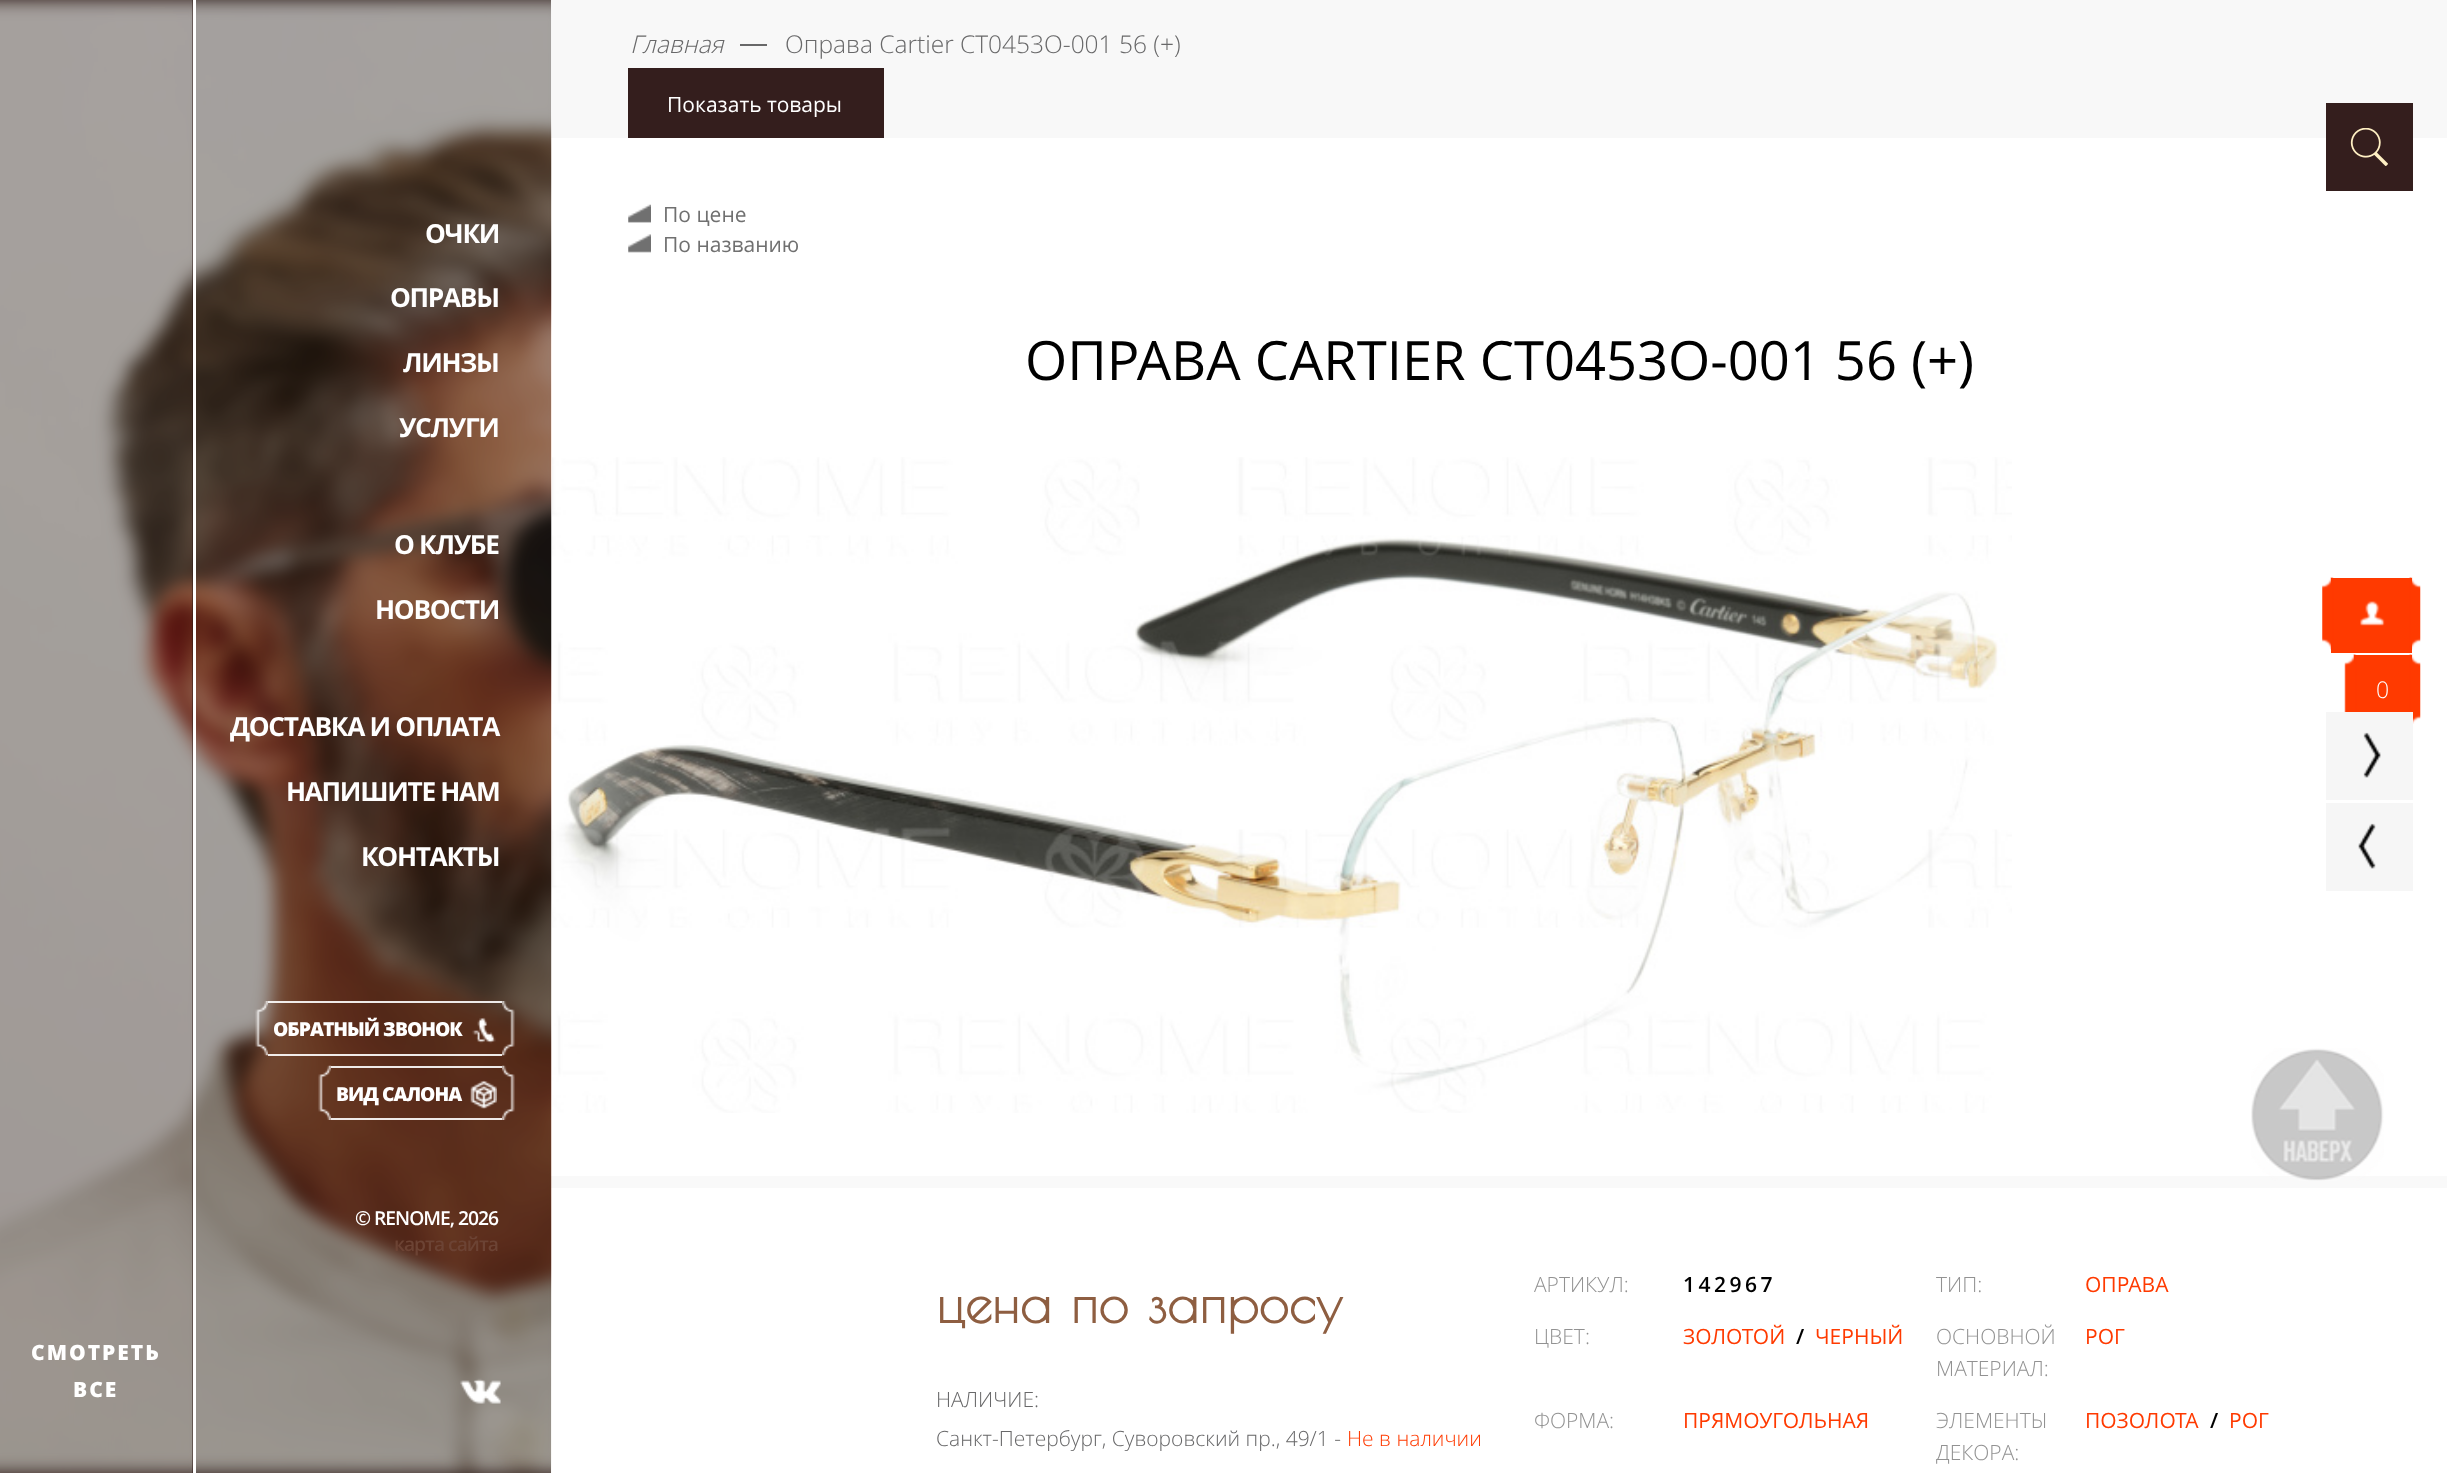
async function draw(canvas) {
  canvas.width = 2447;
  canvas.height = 1473;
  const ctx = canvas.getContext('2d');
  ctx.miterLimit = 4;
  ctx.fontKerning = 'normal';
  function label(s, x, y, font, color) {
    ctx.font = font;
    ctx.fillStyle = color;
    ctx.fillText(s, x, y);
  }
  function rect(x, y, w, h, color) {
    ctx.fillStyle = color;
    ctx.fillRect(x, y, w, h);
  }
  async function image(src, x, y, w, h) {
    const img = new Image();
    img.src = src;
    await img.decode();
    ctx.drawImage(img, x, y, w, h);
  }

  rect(0, 0, 2447, 1473, '#fff');
  rect(196, 0, 355, 1473, '#291713');
  rect(551, 0, 1896, 138, '#f8f8f8');
  rect(551, 1176, 1896, 12, '#f9f9f9');
  await image('assets/img1.png', 196, 0, 356, 1473);
  ctx.letterSpacing = '-1.3px';
  label('ОЧКИ', 425, 243, 'bold 26.25px Open Sans', '#fff');
  label('ОПРАВЫ', 390, 307, 'bold 26.25px Open Sans', '#fff');
  label('ЛИНЗЫ', 403, 372, 'bold 26.25px Open Sans', '#fff');
  label('УСЛУГИ', 399, 437, 'bold 26.25px Open Sans', '#fff');
  label('О КЛУБЕ', 394, 554, 'bold 26.25px Open Sans', '#fff');
  label('НОВОСТИ', 375, 619, 'bold 26.25px Open Sans', '#fff');
  label('ДОСТАВКА И ОПЛАТА', 230, 736, 'bold 26.25px Open Sans', '#fff');
  label('НАПИШИТЕ НАМ', 286, 801, 'bold 26.25px Open Sans', '#fff');
  label('КОНТАКТЫ', 361, 866, 'bold 26.25px Open Sans', '#fff');
  rect(268, 1001, 234, 2, '#ffffffe6');
  rect(268, 1054, 234, 2, '#ffffffe6');
  await image('assets/img2.png', 255, 1001, 13, 55);
  ctx.letterSpacing = '-1px';
  label('ОБРАТНЫЙ ЗВОНОК', 273, 1036, '800 19.25px Open Sans', '#fff');
  await image('assets/img3.png', 472, 1017, 24, 27);
  await image('assets/img4.png', 502, 1001, 13, 55);
  rect(331, 1066, 171, 2, '#ffffffe6');
  rect(331, 1118, 171, 2, '#ffffffe6');
  await image('assets/img5.png', 318, 1065, 13, 55);
  label('ВИД САЛОНА', 336, 1101, '800 19.25px Open Sans', '#fff');
  await image('assets/img6.png', 470, 1080, 27, 29);
  await image('assets/img7.png', 502, 1065, 13, 55);
  label('© RENOME, 2026', 355, 1225, '600 19.25px Open Sans', '#fff');
  label('карта сайта', 394, 1251, '600 19.25px Open Sans', '#6c4334');
  await image('assets/img8.png', 460, 1378, 41, 26);
  rect(0, 0, 193, 1473, '#2b1713');
  await image('assets/img9.png', 0, 0, 193, 1473);
  ctx.letterSpacing = '2px';
  label('СМОТРЕТЬ', 31, 1360, '800 21px Open Sans', '#fff');
  label('ВСЕ', 73, 1397, '800 21px Open Sans', '#fff');
  ctx.letterSpacing = '0px';
  label('Главная', 630, 53, 'italic 300 24.5px Open Sans', '#686869');
  rect(740, 44, 27, 2, '#686869');
  label('Оправа Cartier CT0453O-001 56 (+)', 785, 53, '300 24.5px Open Sans', '#686869');
  rect(628, 68, 256, 70, '#341e1d');
  label('Показать товары', 667, 112, '21px Open Sans', '#fff');
  rect(2326, 103, 87, 88, '#341e1d');
  await image('assets/img10.png', 2350, 128, 38, 38);
  await image('assets/img11.png', 628, 204, 23, 19);
  label('По цене', 663, 222, '21px Open Sans', '#707070');
  await image('assets/img12.png', 628, 234, 23, 19);
  label('По названию', 663, 252, '21px Open Sans', '#707070');
  label('ОПРАВА CARTIER CT0453O-001 56 (+)', 1025, 380, '54.25px Open Sans', '#000');
  rect(2331, 578, 81, 75, '#ff3a00');
  await image('assets/img13.png', 2322, 577, 12, 73);
  await image('assets/img14.png', 2360, 601, 25, 25);
  await image('assets/img15.png', 2409, 577, 12, 73);
  rect(2354, 655, 58, 57, '#ff3a00');
  await image('assets/img16.png', 2344, 654, 13, 58);
  label('0', 2376, 698, '300 23px Open Sans', '#fff');
  await image('assets/img17.png', 2409, 654, 12, 70);
  await image('assets/img18.png', 2251, 1048, 133, 133);
  await image('assets/img19.png', 552, 457, 1460, 656);
  rect(2326, 712, 87, 88, '#f6f6f6');
  await image('assets/img20.png', 2363, 732, 18, 46);
  rect(2326, 803, 87, 88, '#f6f6f6');
  await image('assets/img21.png', 2358, 823, 18, 46);
  label('цена по запросу', 936, 1323, 'bold 54.25px Poiret One', '#8e5e41');
  label('НАЛИЧИЕ:', 936, 1407, '300 21px Open Sans', '#686869');
  label('Санкт-Петербург, Суворовский пр., 49/1 -', 936, 1446, '300 21px Open Sans', '#686869');
  label('Не в наличии', 1347, 1446, '300 21px Open Sans', '#ff3a00');
  label('АРТИКУЛ:', 1534, 1292, '300 21px Open Sans', '#929292');
  ctx.letterSpacing = '3.5px';
  label('142967', 1683, 1292, '600 21px Open Sans', '#000');
  ctx.letterSpacing = '0px';
  label('ТИП:', 1936, 1292, '300 21px Open Sans', '#929292');
  label('ОПРАВА', 2085, 1292, '21px Open Sans', '#ff3a00');
  label('ЦВЕТ:', 1534, 1344, '300 21px Open Sans', '#929292');
  label('ЗОЛОТОЙ', 1683, 1344, '21px Open Sans', '#ff3a00');
  label('/', 1796, 1344, '600 21px Open Sans', '#000');
  label('ЧЕРНЫЙ', 1815, 1344, '21px Open Sans', '#ff3a00');
  label('ОСНОВНОЙ', 1936, 1344, '300 21px Open Sans', '#929292');
  label('МАТЕРИАЛ:', 1936, 1376, '300 21px Open Sans', '#929292');
  label('РОГ', 2085, 1344, '21px Open Sans', '#ff3a00');
  label('ФОРМА:', 1534, 1428, '300 21px Open Sans', '#929292');
  label('ПРЯМОУГОЛЬНАЯ', 1683, 1428, '21px Open Sans', '#ff3a00');
  label('ЭЛЕМЕНТЫ', 1936, 1428, '300 21px Open Sans', '#929292');
  label('ДЕКОРА:', 1936, 1460, '300 21px Open Sans', '#929292');
  label('ПОЗОЛОТА', 2085, 1428, '21px Open Sans', '#ff3a00');
  label('/', 2210, 1428, '600 21px Open Sans', '#000');
  label('РОГ', 2229, 1428, '21px Open Sans', '#ff3a00');
}

draw(document.querySelector('canvas'));
